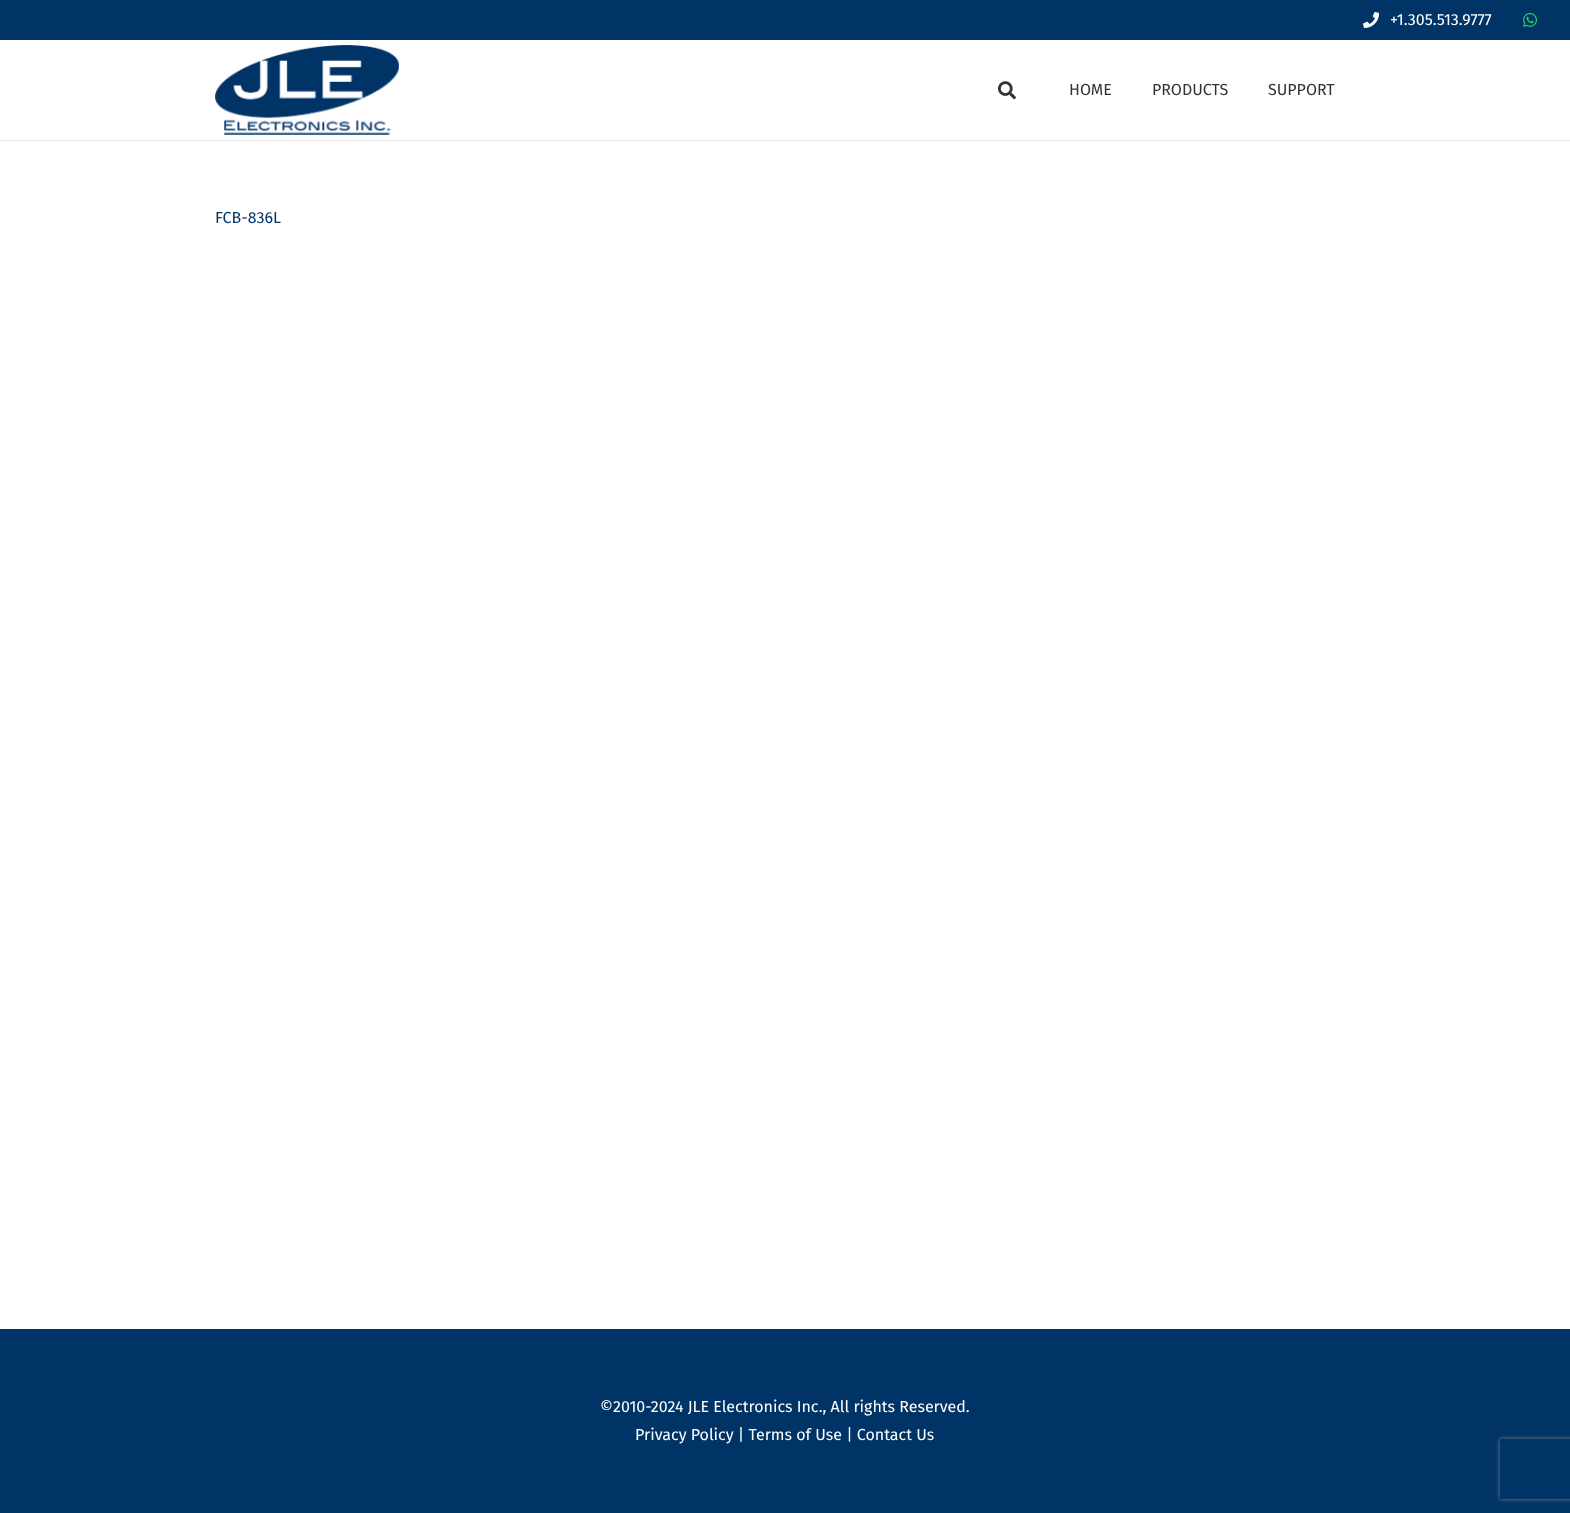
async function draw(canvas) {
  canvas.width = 1570;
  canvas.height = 1513;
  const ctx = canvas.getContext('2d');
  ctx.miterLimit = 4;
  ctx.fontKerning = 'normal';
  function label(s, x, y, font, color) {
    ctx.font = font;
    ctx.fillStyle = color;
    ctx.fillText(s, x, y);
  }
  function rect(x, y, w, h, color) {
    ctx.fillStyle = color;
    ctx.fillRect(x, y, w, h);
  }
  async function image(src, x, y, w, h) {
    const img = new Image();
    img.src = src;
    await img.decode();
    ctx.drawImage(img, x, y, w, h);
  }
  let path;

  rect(0, 0, 1570, 1513, '#fff');
  rect(0, 0, 1570, 40, '#036');
  await image('assets/img1.png', 1363, 12, 16, 16);
  label('+1.305.513.9777', 1390, 25, '16px Fira Sans', '#fff');
  await image('assets/img2.png', 1523, 13, 14, 14);
  rect(0, 140, 1570, 1, '#ebebeb');
  await image('assets/img3.png', 215, 45, 184, 90);
  await image('assets/img4.png', 998, 81, 18, 19);
  label('HOME', 1069, 95, '16px Fira Sans', '#333');
  label('PRODUCTS', 1152, 95, '16px Fira Sans', '#333');
  label('SUPPORT', 1268, 95, '16px Fira Sans', '#333');
  label('FCB-836L', 215, 223, '16px Fira Sans', '#036');
  rect(0, 1329, 1570, 184, '#036');
  label('©2010-2024 JLE Electronics Inc., All rights Reserved.', 600, 1412, '16px Fira Sans', '#fff');
  label('Privacy Policy | Terms of Use | Contact Us', 635, 1440, '16px Fira Sans', '#fff');
  ctx.save();
  path = new Path2D('M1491 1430H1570V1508H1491ZM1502 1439H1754C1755 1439 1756 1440 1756 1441V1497C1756 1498 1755 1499 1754 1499H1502C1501 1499 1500 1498 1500 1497V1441C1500 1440 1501 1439 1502 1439Z');
  ctx.clip(path, 'evenodd');
  ctx.fillStyle = '#808080';
  ctx.filter = 'blur(2.5px)';
  ctx.beginPath();
  ctx.roundRect(1500, 1439, 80, 60, 2);
  ctx.fill();
  ctx.filter = 'none';
  ctx.restore();
}

draw(document.querySelector('canvas'));
